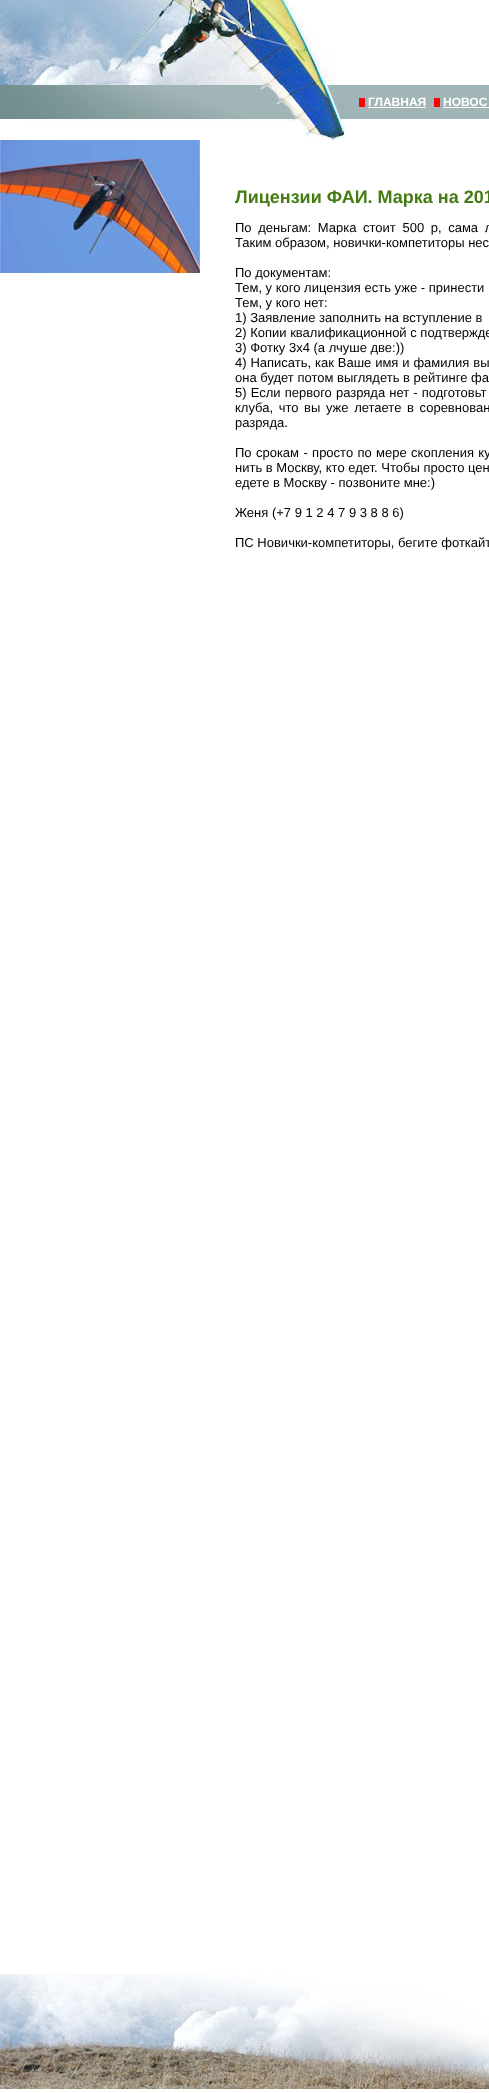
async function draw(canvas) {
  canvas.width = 489;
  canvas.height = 2093;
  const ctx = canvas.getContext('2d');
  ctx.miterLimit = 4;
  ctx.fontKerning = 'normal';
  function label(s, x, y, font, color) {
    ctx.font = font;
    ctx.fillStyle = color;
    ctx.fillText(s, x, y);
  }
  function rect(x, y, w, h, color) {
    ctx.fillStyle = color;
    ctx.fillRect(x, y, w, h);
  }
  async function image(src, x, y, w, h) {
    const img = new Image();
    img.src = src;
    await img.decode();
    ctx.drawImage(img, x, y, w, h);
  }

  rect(0, 0, 489, 2093, '#fff');
  await image('assets/img1.png', 0, 0, 336, 85);
  await image('assets/img2.png', 0, 85, 344, 34);
  rect(344, 85, 145, 34, '#a1b5b6');
  await image('assets/img3.png', 359, 98, 6, 9);
  label('ГЛАВНАЯ', 368, 106, 'bold 12px Liberation Sans', '#fff');
  rect(368, 107, 58, 1, '#fff');
  await image('assets/img3.png', 434, 98, 6, 9);
  label('НОВОС', 443, 106, 'bold 12px Liberation Sans', '#fff');
  rect(443, 107, 46, 1, '#fff');
  await image('assets/img4.png', 24, 119, 320, 21);
  await image('assets/img5.png', 0, 140, 200, 133);
  label('Лицензии ФАИ. Марка на 201', 235, 203, 'bold 18px Liberation Sans', '#447b13');
  ctx.wordSpacing = '3px';
  label('По деньгам: Марка стоит 500 р, сама л', 235, 232, '13px Liberation Sans', '#000');
  ctx.wordSpacing = '0px';
  label('Таким образом, новички-компетиторы нес', 235, 247, '13px Liberation Sans', '#000');
  label('По документам:', 235, 277, '13px Liberation Sans', '#000');
  label('Тем, у кого лицензия есть уже - принести', 235, 292, '13px Liberation Sans', '#000');
  label('Тем, у кого нет:', 235, 307, '13px Liberation Sans', '#000');
  label('1) Заявление заполнить на вступление в', 235, 322, '13px Liberation Sans', '#000');
  label('2) Копии квалификационной с подтвержде', 235, 337, '13px Liberation Sans', '#000');
  label('3) Фотку 3х4 (а лчуше две:))', 235, 352, '13px Liberation Sans', '#000');
  ctx.wordSpacing = '0.25px';
  label('4) Написать, как Ваше имя и фамилия вы', 235, 367, '13px Liberation Sans', '#000');
  ctx.wordSpacing = '0px';
  label('она будет потом выглядеть в рейтинге фа', 235, 382, '13px Liberation Sans', '#000');
  ctx.wordSpacing = '0.5px';
  label('5) Если первого разряда нет - подготовьт', 235, 397, '13px Liberation Sans', '#000');
  ctx.wordSpacing = '2px';
  label('клуба, что вы уже летаете в соревнован', 235, 412, '13px Liberation Sans', '#000');
  ctx.wordSpacing = '0px';
  label('разряда.', 235, 427, '13px Liberation Sans', '#000');
  ctx.wordSpacing = '0.75px';
  label('По срокам - просто по мере скопления ку', 235, 457, '13px Liberation Sans', '#000');
  ctx.wordSpacing = '0px';
  label('нить в Москву, кто едет. Чтобы просто цен', 235, 472, '13px Liberation Sans', '#000');
  label('едете в Москву - позвоните мне:)', 235, 487, '13px Liberation Sans', '#000');
  label('Женя (+7 9 1 2 4 7 9 3 8 8 6)', 235, 517, '13px Liberation Sans', '#000');
  label('ПС Новички-компетиторы, бегите фоткайт', 235, 547, '13px Liberation Sans', '#000');
  await image('assets/img6.png', 0, 1974, 489, 115);
}

draw(document.querySelector('canvas'));
